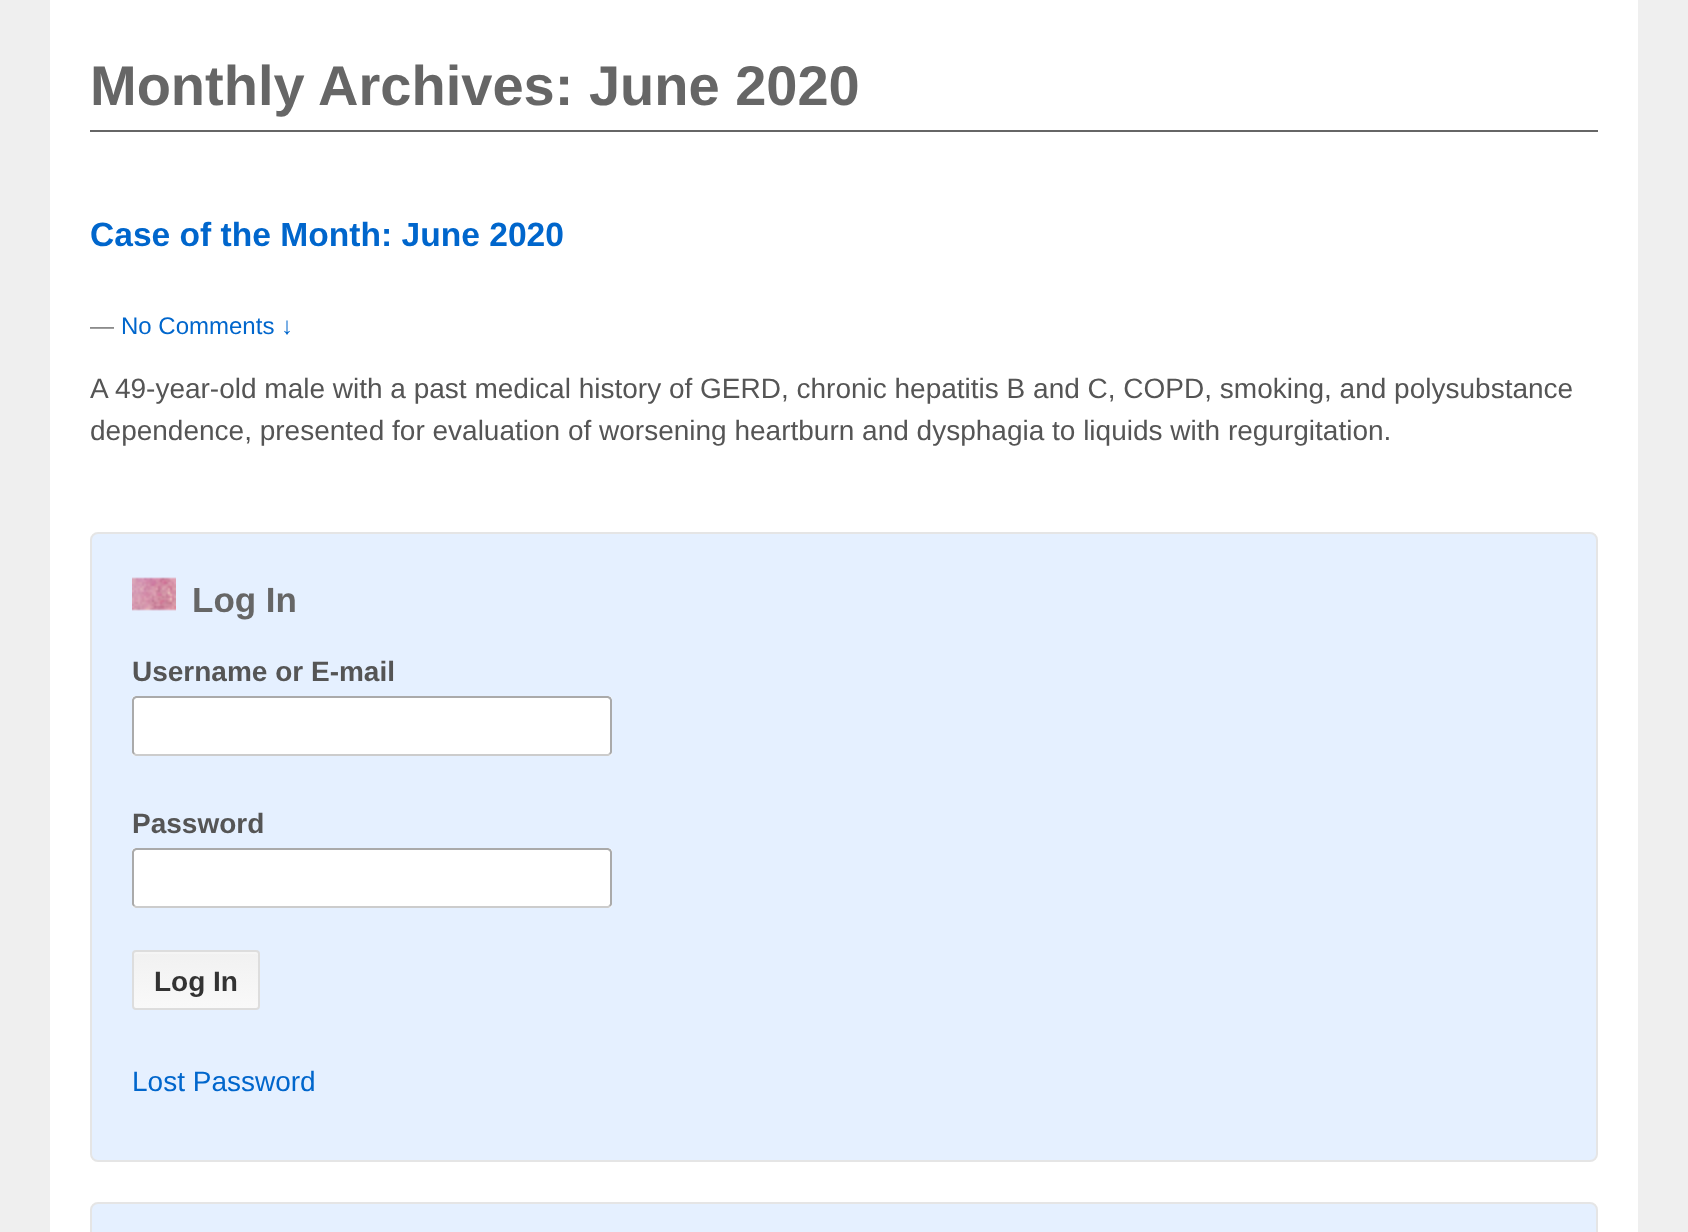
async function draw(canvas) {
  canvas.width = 1688;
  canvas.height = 1232;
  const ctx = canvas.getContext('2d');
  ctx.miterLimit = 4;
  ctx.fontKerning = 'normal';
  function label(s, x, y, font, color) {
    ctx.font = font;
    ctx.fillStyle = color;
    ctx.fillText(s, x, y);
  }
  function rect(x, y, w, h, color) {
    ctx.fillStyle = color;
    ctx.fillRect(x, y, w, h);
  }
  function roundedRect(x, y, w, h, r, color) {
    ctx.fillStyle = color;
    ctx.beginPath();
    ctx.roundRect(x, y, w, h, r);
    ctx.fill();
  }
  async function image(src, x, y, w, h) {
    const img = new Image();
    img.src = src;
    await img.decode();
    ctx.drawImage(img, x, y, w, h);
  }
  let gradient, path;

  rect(0, 0, 1688, 1232, '#efefef');
  rect(50, 0, 1588, 1232, '#fff');
  rect(90, 130, 1508, 2, '#666');
  label('Monthly Archives: June 2020', 90, 105, 'bold 56px Liberation Sans', '#666');
  label('Case of the Month: June 2020', 90, 246, 'bold 33.6px Liberation Sans', '#06c');
  label('—', 90, 334, '24px Liberation Sans', '#7e7e7e');
  label('No Comments ↓', 121, 334, '24px Liberation Sans', '#06c');
  label('A 49-year-old male with a past medical history of GERD, chronic hepatitis B and C, COPD, smoking, and polysubstance', 90, 398, '28px Liberation Sans', '#555');
  label('dependence, presented for evaluation of worsening heartburn and dysphagia to liquids with regurgitation.', 90, 440, '28px Liberation Sans', '#555');
  ctx.fillStyle = '#e5f0ff';
  ctx.beginPath();
  ctx.roundRect(91, 533, 1506, 628, 7);
  ctx.fill();
  ctx.strokeStyle = '#e5e5e5';
  ctx.lineWidth = 2;
  ctx.stroke();
  await image('assets/img1.png', 132, 577, 44, 34);
  label('Log In', 192, 612, 'bold 35px Liberation Sans', '#666');
  label('Username or E-mail', 132, 681, 'bold 28px Liberation Sans', '#555');
  roundedRect(132, 696, 480, 60, 4, '#fff');
  path = new Path2D('M610 754L608 755H136L134 754');
  ctx.strokeStyle = '#ccc';
  ctx.stroke(path);
  path = new Path2D('M134 754L133 752V700L134 698L136 697H608L610 698L611 700V752L610 754');
  ctx.strokeStyle = '#aaa';
  ctx.stroke(path);
  label('Password', 132, 833, 'bold 28px Liberation Sans', '#555');
  roundedRect(132, 848, 480, 60, 4, '#fff');
  path = new Path2D('M610 906L608 907H136L134 906');
  ctx.strokeStyle = '#ccc';
  ctx.stroke(path);
  path = new Path2D('M134 906L133 904V852L134 850L136 849H608L610 850L611 852V904L610 906');
  ctx.strokeStyle = '#aaa';
  ctx.stroke(path);
  ctx.save();
  ctx.beginPath();
  ctx.roundRect(132, 950, 128, 60, 4);
  ctx.clip();
  gradient = ctx.createLinearGradient(196, 1008, 196, 952);
  gradient.addColorStop(0, '#f9f9f9');
  gradient.addColorStop(1, '#f1f1f1');
  ctx.fillStyle = gradient;
  ctx.fillRect(132, 952, 128, 56);
  ctx.restore();
  ctx.fillStyle = '#f5f5f5';
  path = new Path2D('M136 954H256L258 955V956V954C258 953 257 952 256 952H136C135 952 134 953 134 954V956C134 955 135 954 136 954Z');
  ctx.fill(path);
  ctx.beginPath();
  ctx.roundRect(133, 951, 126, 58, 3);
  ctx.strokeStyle = '#ddd';
  ctx.stroke();
  label('Log In', 154, 991, 'bold 28px Liberation Sans', '#333');
  label('Lost Password', 132, 1091, '28px Liberation Sans', '#06c');
  ctx.fillStyle = '#e5f0ff';
  ctx.beginPath();
  ctx.roundRect(91, 1203, 1506, 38, 7);
  ctx.fill();
  ctx.strokeStyle = '#e5e5e5';
  ctx.stroke();
}

draw(document.querySelector('canvas'));
